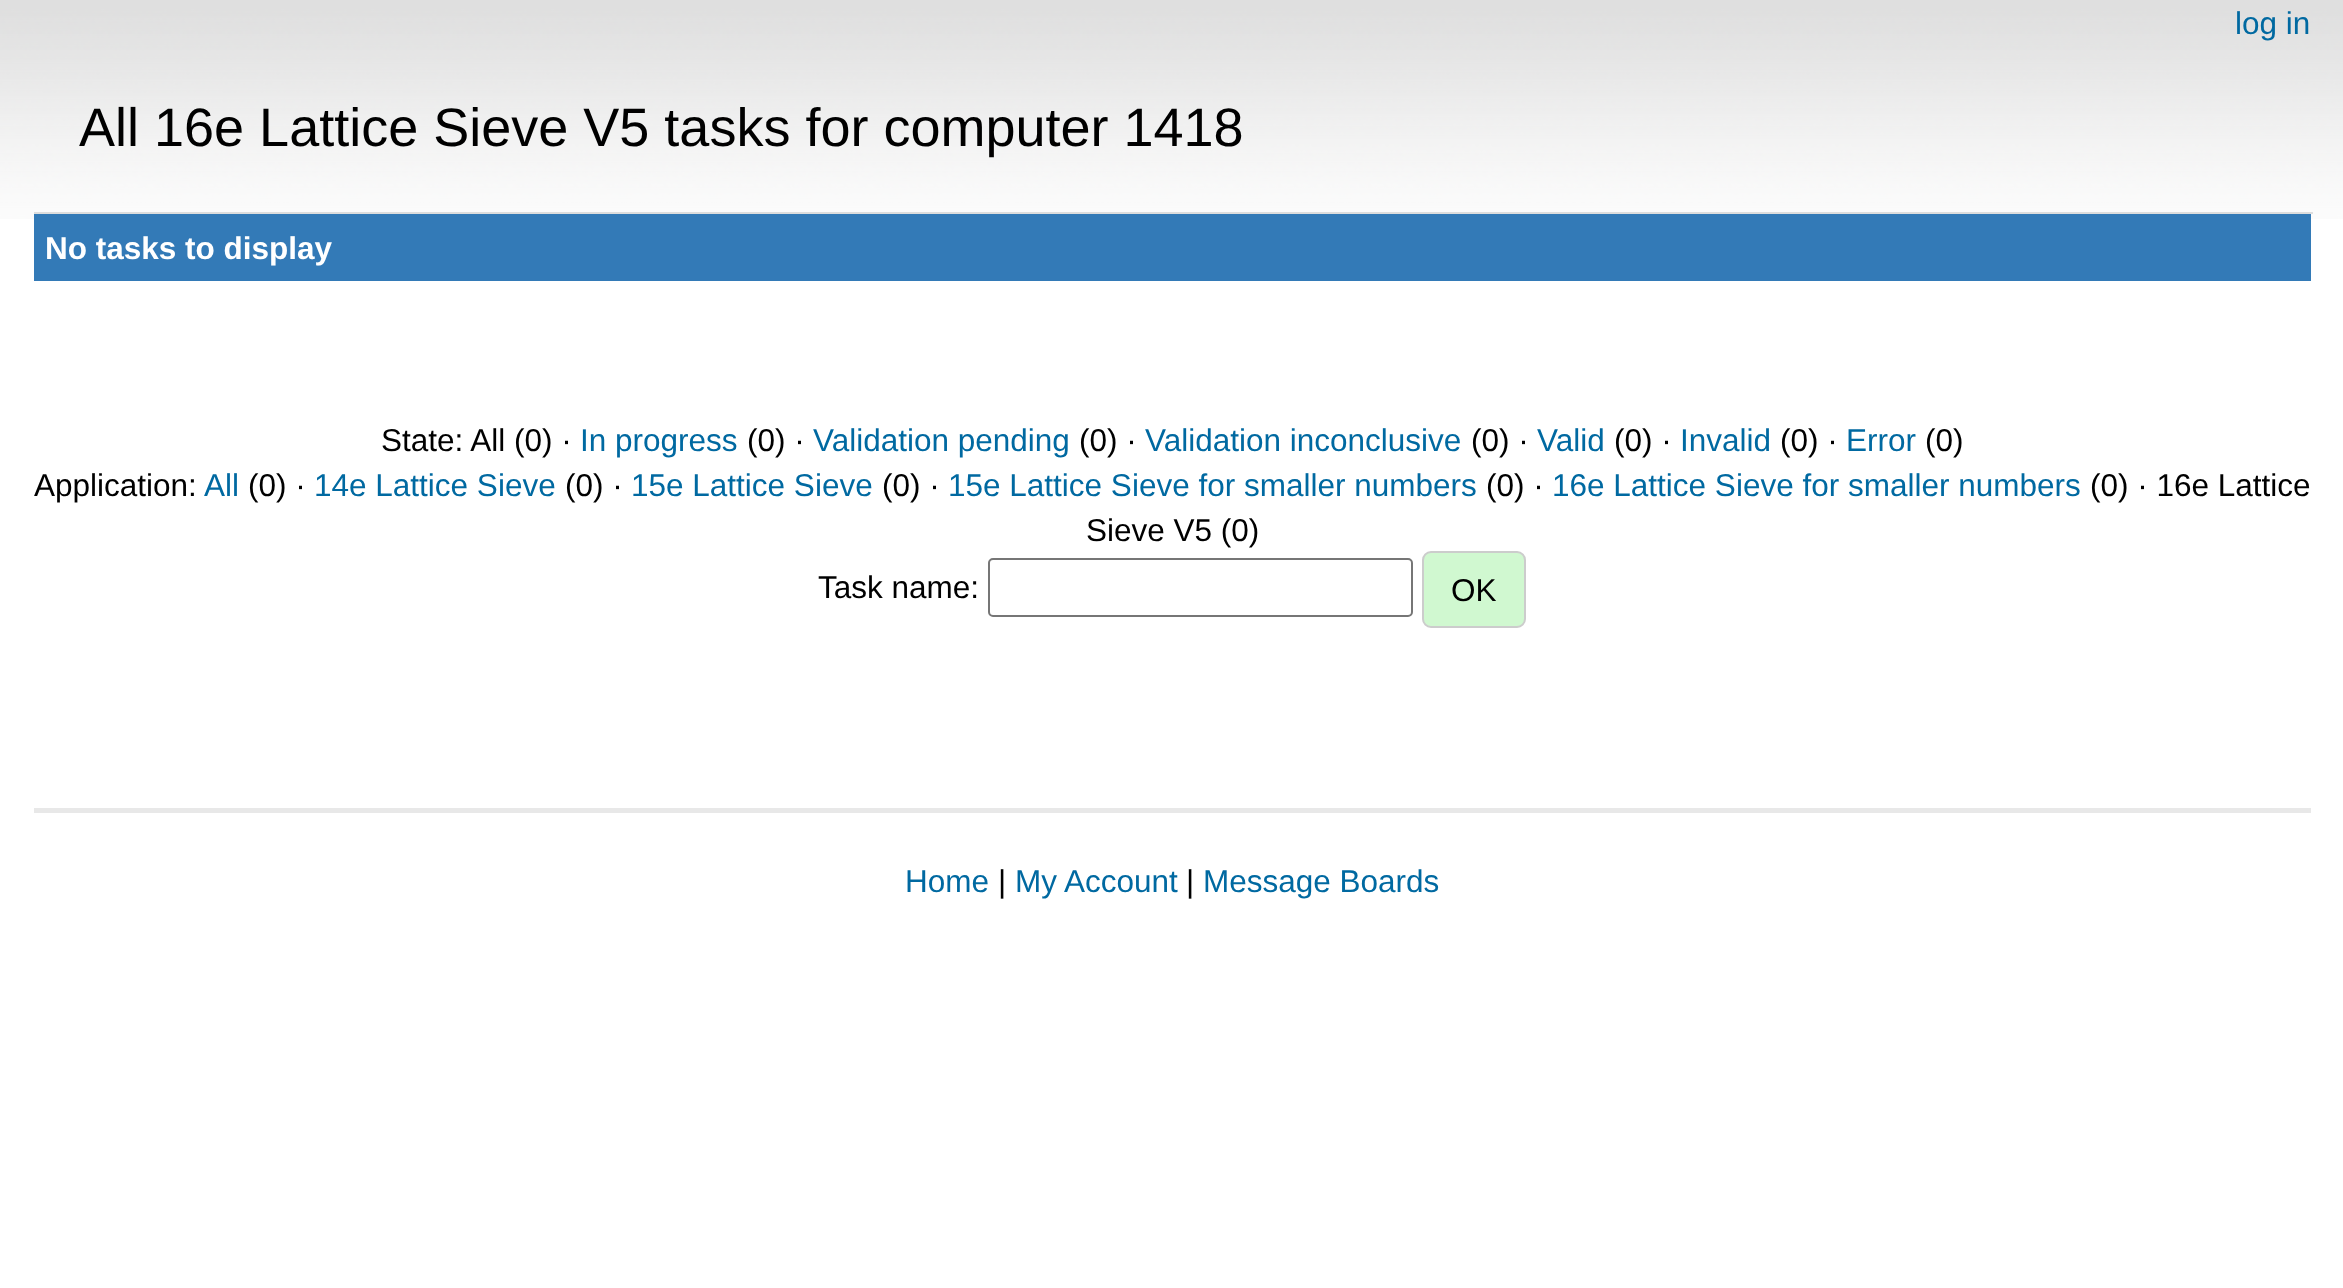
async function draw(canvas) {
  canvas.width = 2343;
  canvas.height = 1288;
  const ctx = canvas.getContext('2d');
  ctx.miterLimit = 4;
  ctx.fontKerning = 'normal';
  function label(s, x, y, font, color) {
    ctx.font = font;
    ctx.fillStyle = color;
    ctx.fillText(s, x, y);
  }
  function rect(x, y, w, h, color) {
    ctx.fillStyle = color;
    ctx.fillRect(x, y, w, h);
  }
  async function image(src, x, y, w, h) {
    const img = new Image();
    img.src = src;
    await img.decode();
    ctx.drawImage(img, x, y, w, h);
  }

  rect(0, 0, 2343, 1288, '#fff');
  await image('assets/img1.png', 0, 0, 2343, 219);
  label('log in', 2235, 34, '31.5px Liberation Sans', '#0069a1');
  label('All 16e Lattice Sieve V5 tasks for computer 1418', 79, 146, '54px Liberation Sans', '#000');
  rect(34, 214, 2277, 67, '#337ab7');
  rect(34, 212, 2279, 2, '#ddd');
  label('No tasks to display', 45, 259, 'bold 31.5px Liberation Sans', '#fff');
  label('State: All (0) ·', 381, 451, '31.5px Liberation Sans', '#000');
  label('In progress', 580, 451, '31.5px Liberation Sans', '#0069a1');
  label('(0) ·', 747, 451, '31.5px Liberation Sans', '#000');
  label('Validation pending', 813, 451, '31.5px Liberation Sans', '#0069a1');
  label('(0) ·', 1079, 451, '31.5px Liberation Sans', '#000');
  label('Validation inconclusive', 1145, 451, '31.5px Liberation Sans', '#0069a1');
  label('(0) ·', 1471, 451, '31.5px Liberation Sans', '#000');
  label('Valid', 1537, 451, '31.5px Liberation Sans', '#0069a1');
  label('(0) ·', 1614, 451, '31.5px Liberation Sans', '#000');
  label('Invalid', 1680, 451, '31.5px Liberation Sans', '#0069a1');
  label('(0) ·', 1780, 451, '31.5px Liberation Sans', '#000');
  label('Error', 1846, 451, '31.5px Liberation Sans', '#0069a1');
  label('(0)', 1925, 451, '31.5px Liberation Sans', '#000');
  label('Application:', 34, 496, '31.5px Liberation Sans', '#000');
  label('All', 204, 496, '31.5px Liberation Sans', '#0069a1');
  label('(0) ·', 248, 496, '31.5px Liberation Sans', '#000');
  label('14e Lattice Sieve', 314, 496, '31.5px Liberation Sans', '#0069a1');
  label('(0) ·', 565, 496, '31.5px Liberation Sans', '#000');
  label('15e Lattice Sieve', 631, 496, '31.5px Liberation Sans', '#0069a1');
  label('(0) ·', 882, 496, '31.5px Liberation Sans', '#000');
  label('15e Lattice Sieve for smaller numbers', 948, 496, '31.5px Liberation Sans', '#0069a1');
  label('(0) ·', 1486, 496, '31.5px Liberation Sans', '#000');
  label('16e Lattice Sieve for smaller numbers', 1552, 496, '31.5px Liberation Sans', '#0069a1');
  label('(0) · 16e Lattice', 2090, 496, '31.5px Liberation Sans', '#000');
  label('Sieve V5 (0)', 1086, 541, '31.5px Liberation Sans', '#000');
  label('Task name:', 818, 598, '31.5px Liberation Sans', '#000');
  ctx.beginPath();
  ctx.roundRect(989, 559, 423, 57, 4);
  ctx.strokeStyle = '#767676';
  ctx.lineWidth = 2;
  ctx.stroke();
  ctx.fillStyle = '#d0f8d0';
  ctx.beginPath();
  ctx.roundRect(1423, 552, 102, 75, 8);
  ctx.fill();
  ctx.strokeStyle = '#ccc';
  ctx.stroke();
  label('OK', 1451, 601, '31.5px Liberation Sans', '#000');
  rect(34, 808, 2277, 5, '#e8e8e8');
  label('Home', 905, 892, '31.5px Liberation Sans', '#0069a1');
  label('|', 998, 892, '31.5px Liberation Sans', '#000');
  label('My Account', 1015, 892, '31.5px Liberation Sans', '#0069a1');
  label('|', 1186, 892, '31.5px Liberation Sans', '#000');
  label('Message Boards', 1203, 892, '31.5px Liberation Sans', '#0069a1');
}

draw(document.querySelector('canvas'));
